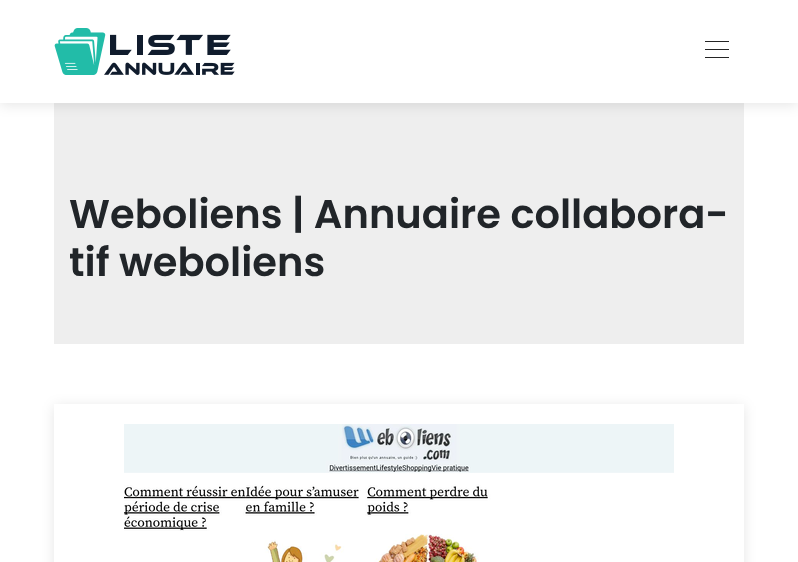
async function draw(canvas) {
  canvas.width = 798;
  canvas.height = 562;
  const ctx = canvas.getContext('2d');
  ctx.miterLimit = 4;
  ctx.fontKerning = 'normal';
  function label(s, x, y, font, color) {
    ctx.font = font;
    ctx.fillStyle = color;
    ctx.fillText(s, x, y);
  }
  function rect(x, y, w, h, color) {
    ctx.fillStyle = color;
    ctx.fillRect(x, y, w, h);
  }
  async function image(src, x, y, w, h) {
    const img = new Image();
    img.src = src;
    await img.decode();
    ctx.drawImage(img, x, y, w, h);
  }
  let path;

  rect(0, 0, 798, 562, '#fff');
  rect(54, 103, 690, 241, '#eee');
  ctx.fillStyle = '#0000001a';
  ctx.filter = 'blur(6.5px)';
  ctx.beginPath();
  ctx.rect(0, 2, 798, 103);
  ctx.fill();
  ctx.filter = 'none';
  rect(0, 0, 798, 103, '#fff');
  await image('assets/img1.png', 54, 28, 181, 47);
  rect(705, 41, 24, 1, '#242424');
  rect(705, 49, 24, 1, '#242424');
  rect(705, 57, 24, 1, '#242424');
  label('Weboliens | Annuaire collabora-', 69, 228, '600 40px Poppins', '#212529');
  label('tif weboliens', 69, 276, '600 40px Poppins', '#212529');
  ctx.save();
  path = new Path2D('M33 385H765V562H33ZM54 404H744V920H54Z');
  ctx.clip(path, 'evenodd');
  ctx.fillStyle = '#0000001a';
  ctx.filter = 'blur(6.5px)';
  ctx.beginPath();
  ctx.rect(54, 406, 690, 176);
  ctx.fill();
  ctx.filter = 'none';
  ctx.restore();
  await image('assets/img2.png', 124, 424, 550, 138);
}

draw(document.querySelector('canvas'));
